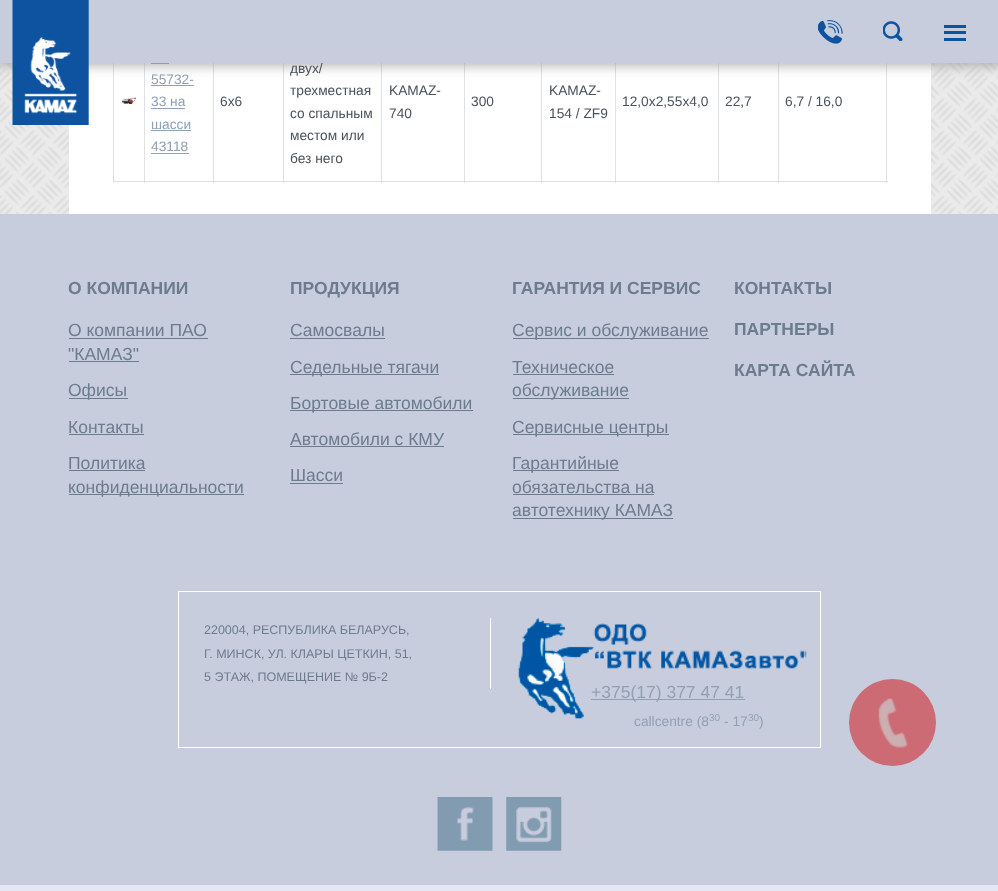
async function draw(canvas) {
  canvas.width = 998;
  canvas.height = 891;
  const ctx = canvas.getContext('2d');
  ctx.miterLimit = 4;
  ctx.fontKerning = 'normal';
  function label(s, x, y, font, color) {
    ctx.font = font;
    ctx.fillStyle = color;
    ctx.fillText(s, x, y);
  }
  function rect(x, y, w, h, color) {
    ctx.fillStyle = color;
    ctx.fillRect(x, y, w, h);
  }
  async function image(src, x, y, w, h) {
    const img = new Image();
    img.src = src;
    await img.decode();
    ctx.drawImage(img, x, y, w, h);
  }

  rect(0, 0, 998, 891, '#fff');
  await image('assets/img1.png', 0, 63, 998, 151);
  rect(69, 63, 862, 151, '#fff');
  rect(886, 63, 1, 120, '#dce1e8');
  rect(778, 181, 110, 1, '#dce1e8');
  rect(778, 63, 1, 120, '#dce1e8');
  rect(718, 181, 61, 1, '#dce1e8');
  rect(718, 63, 1, 120, '#dce1e8');
  rect(615, 181, 104, 1, '#dce1e8');
  rect(615, 63, 1, 120, '#dce1e8');
  rect(541, 181, 75, 1, '#dce1e8');
  rect(541, 63, 1, 120, '#dce1e8');
  rect(464, 181, 79, 1, '#dce1e8');
  rect(464, 63, 1, 120, '#dce1e8');
  rect(381, 181, 84, 1, '#dce1e8');
  rect(381, 63, 1, 120, '#dce1e8');
  rect(283, 181, 100, 1, '#dce1e8');
  rect(283, 63, 1, 120, '#dce1e8');
  rect(213, 181, 71, 1, '#dce1e8');
  rect(213, 63, 1, 120, '#dce1e8');
  rect(144, 181, 70, 1, '#dce1e8');
  rect(144, 63, 1, 120, '#dce1e8');
  rect(113, 181, 32, 1, '#dce1e8');
  rect(113, 63, 1, 120, '#dce1e8');
  rect(151, 63, 18, 1, '#90a1b5');
  ctx.fillStyle = '#969696b3';
  ctx.filter = 'blur(6px)';
  ctx.beginPath();
  ctx.rect(-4, -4, 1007, 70);
  ctx.fill();
  ctx.filter = 'none';
  rect(0, 0, 998, 63, '#c8cddd');
  await image('assets/img2.png', 12, 0, 77, 125);
  await image('assets/img3.png', 818, 20, 25, 24);
  await image('assets/img4.png', 883, 21, 20, 20);
  rect(944, 31, 22, 3, '#0d53a0');
  rect(944, 25, 22, 3, '#0d53a0');
  rect(944, 38, 22, 3, '#0d53a0');
  await image('assets/img5.png', 121, 97, 16, 8);
  label('55732-', 151, 84, '13.75px Liberation Sans', '#90a1b5');
  rect(151, 85, 43, 1, '#90a1b5');
  label('33 на', 151, 106, '13.75px Liberation Sans', '#90a1b5');
  rect(151, 108, 34, 1, '#90a1b5');
  label('шасси', 151, 129, '13.75px Liberation Sans', '#90a1b5');
  rect(151, 130, 40, 1, '#90a1b5');
  label('43118', 151, 151, '13.75px Liberation Sans', '#90a1b5');
  rect(151, 153, 38, 1, '#90a1b5');
  label('6х6', 220, 106, '13.75px Liberation Sans', '#4a525c');
  label('двух/', 290, 73, '13.75px Liberation Sans', '#4a525c');
  label('трехместная', 290, 95, '13.75px Liberation Sans', '#4a525c');
  label('со спальным', 290, 118, '13.75px Liberation Sans', '#4a525c');
  label('местом или', 290, 140, '13.75px Liberation Sans', '#4a525c');
  label('без него', 290, 163, '13.75px Liberation Sans', '#4a525c');
  label('KAMAZ-', 389, 95, '13.75px Liberation Sans', '#4a525c');
  label('740', 389, 118, '13.75px Liberation Sans', '#4a525c');
  label('300', 471, 106, '13.75px Liberation Sans', '#4a525c');
  label('KAMAZ-', 549, 95, '13.75px Liberation Sans', '#4a525c');
  label('154 / ZF9', 549, 118, '13.75px Liberation Sans', '#4a525c');
  label('12,0x2,55x4,0', 622, 106, '13.75px Liberation Sans', '#4a525c');
  label('22,7', 725, 106, '13.75px Liberation Sans', '#4a525c');
  label('6,7 / 16,0', 785, 106, '13.75px Liberation Sans', '#4a525c');
  rect(0, 214, 998, 671, '#c8cddd');
  label('О КОМПАНИИ', 68, 294, 'bold 17.5px Liberation Sans', '#6c7c8f');
  label('О компании ПАО', 68, 336, '17.5px Liberation Sans', '#6c7c8f');
  rect(69, 338, 139, 1, '#6c7c8f');
  label('"КАМАЗ"', 68, 360, '17.5px Liberation Sans', '#6c7c8f');
  rect(69, 361, 70, 1, '#6c7c8f');
  rect(69, 398, 59, 1, '#6c7c8f');
  label('Офисы', 68, 396, '17.5px Liberation Sans', '#6c7c8f');
  label('Контакты', 68, 433, '17.5px Liberation Sans', '#6c7c8f');
  rect(69, 434, 75, 1, '#6c7c8f');
  label('Политика', 68, 469, '17.5px Liberation Sans', '#6c7c8f');
  rect(69, 470, 76, 1, '#6c7c8f');
  rect(69, 494, 175, 1, '#6c7c8f');
  label('конфиденциальности', 68, 493, '17.5px Liberation Sans', '#6c7c8f');
  label('ПРОДУКЦИЯ', 290, 294, 'bold 17.5px Liberation Sans', '#6c7c8f');
  label('Самосвалы', 290, 336, '17.5px Liberation Sans', '#6c7c8f');
  rect(290, 338, 95, 1, '#6c7c8f');
  rect(290, 374, 149, 1, '#6c7c8f');
  label('Седельные тягачи', 290, 373, '17.5px Liberation Sans', '#6c7c8f');
  rect(290, 410, 183, 1, '#6c7c8f');
  label('Бортовые автомобили', 290, 409, '17.5px Liberation Sans', '#6c7c8f');
  label('Автомобили с КМУ', 290, 445, '17.5px Liberation Sans', '#6c7c8f');
  rect(290, 446, 154, 1, '#6c7c8f');
  label('Шасси', 290, 481, '17.5px Liberation Sans', '#6c7c8f');
  rect(290, 483, 53, 1, '#6c7c8f');
  label('ГАРАНТИЯ И СЕРВИС', 512, 294, 'bold 17.5px Liberation Sans', '#6c7c8f');
  rect(513, 338, 196, 1, '#6c7c8f');
  label('Сервис и обслуживание', 512, 336, '17.5px Liberation Sans', '#6c7c8f');
  label('Техническое', 512, 373, '17.5px Liberation Sans', '#6c7c8f');
  rect(513, 374, 101, 1, '#6c7c8f');
  rect(513, 398, 116, 1, '#6c7c8f');
  label('обслуживание', 512, 396, '17.5px Liberation Sans', '#6c7c8f');
  rect(513, 434, 156, 1, '#6c7c8f');
  label('Сервисные центры', 512, 433, '17.5px Liberation Sans', '#6c7c8f');
  rect(513, 470, 106, 1, '#6c7c8f');
  label('Гарантийные', 512, 469, '17.5px Liberation Sans', '#6c7c8f');
  label('обязательства на', 512, 493, '17.5px Liberation Sans', '#6c7c8f');
  rect(513, 494, 141, 1, '#6c7c8f');
  rect(513, 518, 160, 1, '#6c7c8f');
  label('автотехнику КАМАЗ', 512, 516, '17.5px Liberation Sans', '#6c7c8f');
  label('КОНТАКТЫ', 734, 294, 'bold 17.5px Liberation Sans', '#6c7c8f');
  label('ПАРТНЕРЫ', 734, 335, 'bold 17.5px Liberation Sans', '#6c7c8f');
  label('КАРТА САЙТА', 734, 376, 'bold 17.5px Liberation Sans', '#6c7c8f');
  ctx.strokeStyle = '#fff';
  ctx.strokeRect(178.5, 591.5, 642, 156);
  rect(490, 618, 1, 71, '#fff');
  label('220004, РЕСПУБЛИКА БЕЛАРУСЬ,', 204, 634, '12.5px Liberation Sans', '#6c7c8f');
  label('Г. МИНСК, УЛ. КЛАРЫ ЦЕТКИН, 51,', 204, 658, '12.5px Liberation Sans', '#6c7c8f');
  label('5 ЭТАЖ, ПОМЕЩЕНИЕ № 9Б-2', 204, 681, '12.5px Liberation Sans', '#6c7c8f');
  await image('assets/img6.png', 518, 618, 289, 101);
  rect(591, 699, 154, 1, '#90a1b5');
  label('+375(17) 377 47 41', 591, 698, '17.5px Liberation Sans', '#90a1b5');
  label('callcentre (8', 634, 726, '13.75px Liberation Sans', '#90a1b5');
  label('30', 709, 721, '10px Liberation Sans', '#90a1b5');
  label('- 17', 724, 726, '13.75px Liberation Sans', '#90a1b5');
  label('30', 748, 721, '10px Liberation Sans', '#90a1b5');
  label(')', 759, 726, '13.75px Liberation Sans', '#90a1b5');
  await image('assets/img7.png', 437, 797, 56, 54);
  await image('assets/img8.png', 506, 797, 56, 54);
  rect(0, 885, 998, 6, '#e5e8f4');
  ctx.fillStyle = '#cc6b73';
  ctx.beginPath();
  ctx.arc(892.5, 722.5, 43.5, 0, 2 * Math.PI);
  ctx.fill();
  await image('assets/img9.png', 878, 698, 30, 50);
}

draw(document.querySelector('canvas'));
